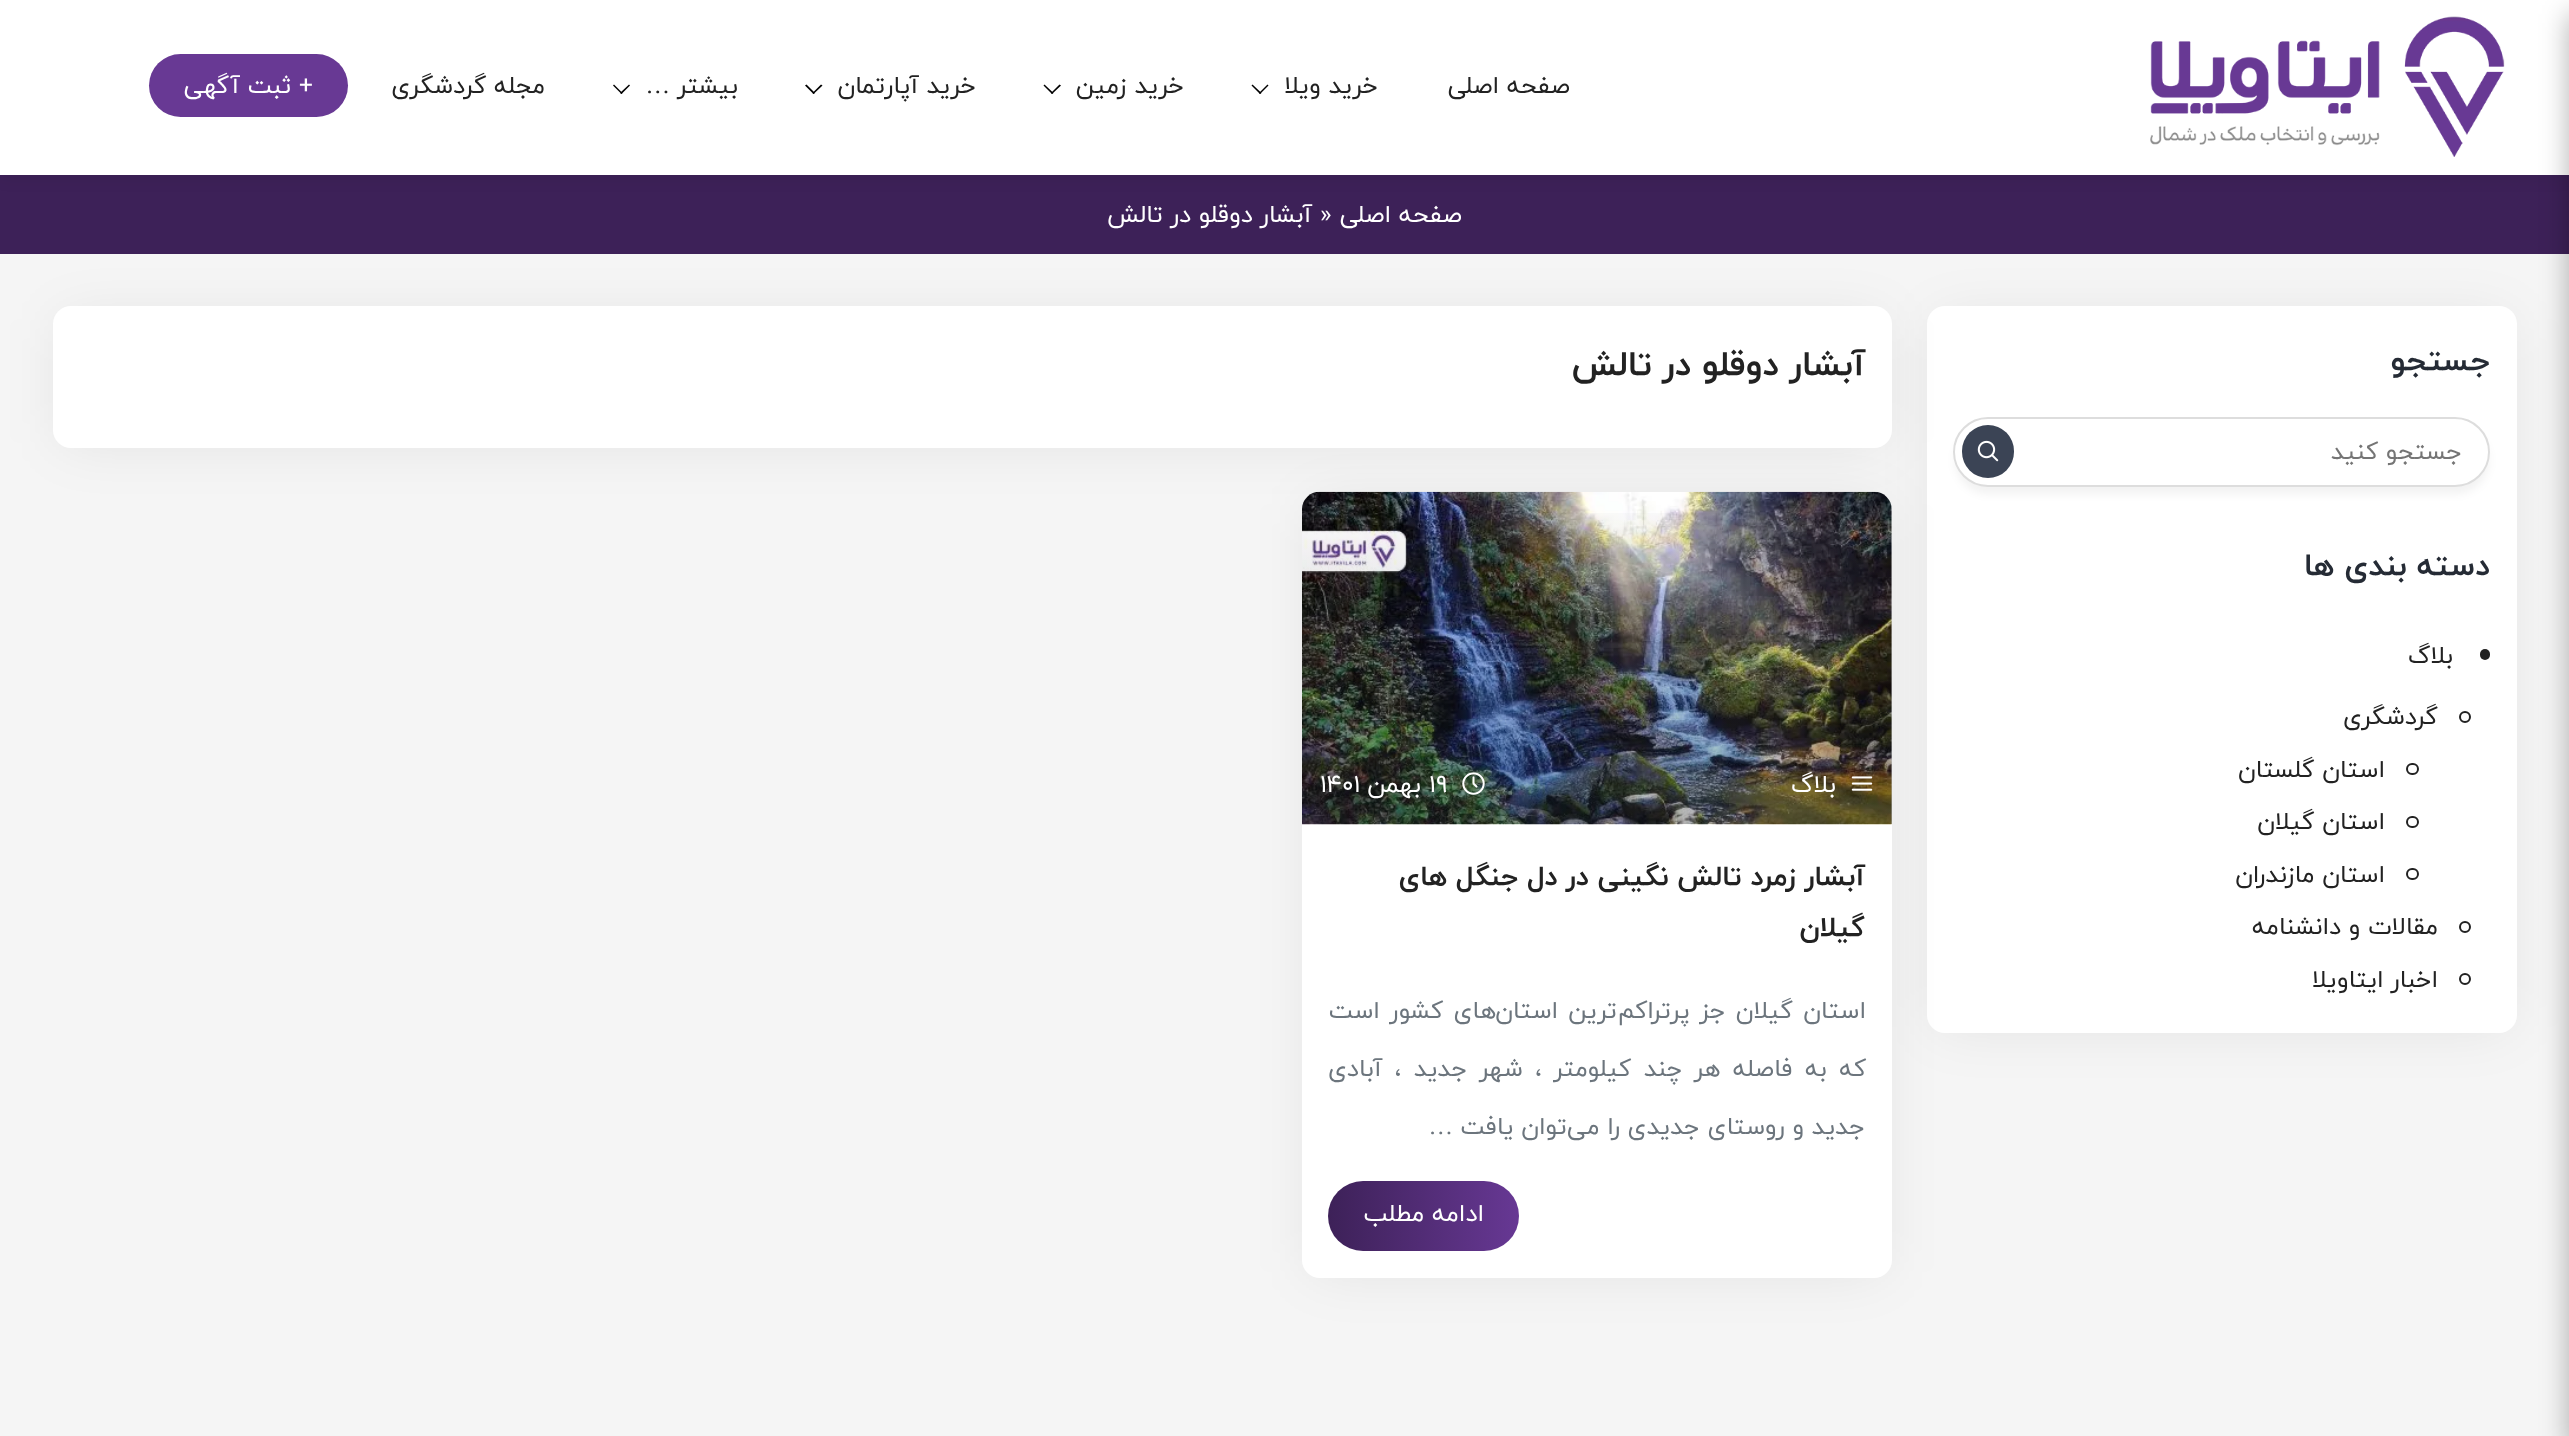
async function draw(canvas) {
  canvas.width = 2569;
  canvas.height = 1436;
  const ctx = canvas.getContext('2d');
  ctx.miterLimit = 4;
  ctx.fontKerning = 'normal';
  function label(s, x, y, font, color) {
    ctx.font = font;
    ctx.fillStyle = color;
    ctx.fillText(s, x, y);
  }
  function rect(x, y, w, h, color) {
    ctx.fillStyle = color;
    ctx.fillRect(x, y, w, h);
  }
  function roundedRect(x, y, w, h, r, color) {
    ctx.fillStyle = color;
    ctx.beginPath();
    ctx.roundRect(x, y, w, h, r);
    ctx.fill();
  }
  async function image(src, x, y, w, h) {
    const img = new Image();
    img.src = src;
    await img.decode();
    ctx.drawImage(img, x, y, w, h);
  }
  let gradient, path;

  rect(0, 0, 2569, 1436, '#f5f5f5');
  rect(0, 175, 2569, 79, '#3d2158');
  ctx.fillStyle = '#0000001a';
  ctx.filter = 'blur(9px)';
  ctx.beginPath();
  ctx.rect(0, 0, 2569, 175);
  ctx.fill();
  ctx.filter = 'none';
  rect(0, 0, 2569, 175, '#fff');
  ctx.fillStyle = '#0000004d';
  ctx.filter = 'blur(14px)';
  ctx.beginPath();
  ctx.rect(2569, 14, 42, 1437);
  ctx.fill();
  ctx.filter = 'none';
  await image('assets/img1.png', 2150, 16, 355, 141);
  ctx.direction = 'rtl';
  label('صفحه اصلی', 1570, 93, '24.5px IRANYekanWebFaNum', '#222');
  label('خرید ویلا', 1378, 93, '24.5px IRANYekanWebFaNum', '#222');
  ctx.fillStyle = '#000';
  path = new Path2D('M1267.5 84.5L1268.5 85.5L1260 94L1259 93Z');
  ctx.fill(path);
  path = new Path2D('M1252.5 84.5L1261.5 93L1260 94L1251.5 85.5Z');
  ctx.fill(path);
  label('خرید زمین', 1184, 93, '24.5px IRANYekanWebFaNum', '#222');
  ctx.fillStyle = '#000';
  path = new Path2D('M1059.5 84.5L1061 85.5L1052 94L1051 93Z');
  ctx.fill(path);
  path = new Path2D('M1044.5 84.5L1053.5 93L1052 94L1043.5 85.5Z');
  ctx.fill(path);
  label('خرید آپارتمان', 976, 93, '24.5px IRANYekanWebFaNum', '#222');
  ctx.fillStyle = '#000';
  path = new Path2D('M821 84.5L822.5 85.5L813.5 94L812.5 93Z');
  ctx.fill(path);
  path = new Path2D('M806.5 84.5L815 93L813.5 94L805 85.5Z');
  ctx.fill(path);
  label('بیشتر', 738, 93, '24.5px IRANYekanWebFaNum', '#222');
  label('…', 670, 93, '24.5px Liberation Serif', '#222');
  ctx.fillStyle = '#000';
  path = new Path2D('M629 84.5L630 85.5L621.5 94L620 93Z');
  ctx.fill(path);
  path = new Path2D('M614 84.5L622.5 93L621.5 94L613 85.5Z');
  ctx.fill(path);
  label('مجله گردشگری', 545, 93, '24.5px IRANYekanWebFaNum', '#222');
  roundedRect(149, 54, 199, 63, 31.5, '#683994');
  label('+ ثبت آگهی', 313, 93, '24.5px IRANYekanWebFaNum', '#fff');
  label('صفحه اصلی', 1462, 222, '24.5px IRANYekanWebFaNum', '#fff');
  ctx.direction = 'ltr';
  label('»', 1320, 222, '24.5px IRANYekanWebFaNum', '#fff');
  ctx.direction = 'rtl';
  label('آبشار دوقلو در تالش', 1312, 222, '24.5px IRANYekanWebFaNum', '#fff');
  ctx.fillStyle = '#00000014';
  ctx.filter = 'blur(28px)';
  ctx.beginPath();
  ctx.roundRect(1936, 319, 572, 708, 9);
  ctx.fill();
  ctx.filter = 'none';
  roundedRect(1927, 306, 590, 727, 18, '#fff');
  label('جستجو', 2490, 370, 'bold 31.5px IRANYekanWebFaNum', '#252b35');
  ctx.fillStyle = '#0000000d';
  ctx.filter = 'blur(4.5px)';
  ctx.beginPath();
  ctx.roundRect(1955, 427, 534, 67, 33.5);
  ctx.fill();
  ctx.filter = 'none';
  ctx.fillStyle = '#fff';
  ctx.beginPath();
  ctx.roundRect(1954, 418, 535, 68, 34);
  ctx.fill();
  ctx.strokeStyle = '#ddd';
  ctx.lineWidth = 2;
  ctx.stroke();
  label('جستجو کنید', 2462, 459, '24.5px IRANYekanWebFaNum', '#757575');
  roundedRect(1962, 425, 52, 53, 26, '#3b4455');
  await image('assets/img2.png', 1977, 440, 22, 22);
  label('دسته بندی ها', 2490, 575, 'bold 31.5px IRANYekanWebFaNum', '#252b35');
  roundedRect(2480, 649, 10, 11, 5, '#222');
  label('بلاگ', 2453, 663, '24.5px IRANYekanWebFaNum', '#222');
  ctx.beginPath();
  ctx.arc(2465, 717, 5, 0, 2 * Math.PI);
  ctx.strokeStyle = '#222';
  ctx.stroke();
  label('گردشگری', 2438, 724, '24.5px IRANYekanWebFaNum', '#222');
  ctx.beginPath();
  ctx.roundRect(2407, 764, 11, 10, 5);
  ctx.stroke();
  label('استان گلستان', 2385, 777, '24.5px IRANYekanWebFaNum', '#222');
  ctx.beginPath();
  ctx.roundRect(2407, 817, 11, 10, 5);
  ctx.stroke();
  label('استان گیلان', 2385, 829, '24.5px IRANYekanWebFaNum', '#222');
  ctx.beginPath();
  ctx.roundRect(2407, 869, 11, 10, 5);
  ctx.stroke();
  label('استان مازندران', 2385, 882, '24.5px IRANYekanWebFaNum', '#222');
  ctx.beginPath();
  ctx.arc(2465, 927, 5, 0, 2 * Math.PI);
  ctx.stroke();
  label('مقالات و دانشنامه', 2438, 934, '24.5px IRANYekanWebFaNum', '#222');
  ctx.beginPath();
  ctx.arc(2465, 979, 5, 0, 2 * Math.PI);
  ctx.stroke();
  label('اخبار ایتاویلا', 2438, 987, '24.5px IRANYekanWebFaNum', '#222');
  ctx.fillStyle = '#00000014';
  ctx.filter = 'blur(28px)';
  ctx.beginPath();
  ctx.roundRect(61, 319, 1822, 124, 9);
  ctx.fill();
  ctx.filter = 'none';
  roundedRect(53, 306, 1839, 142, 18, '#fff');
  label('آبشار دوقلو در تالش', 1865, 375, 'bold 35px IRANYekanWebFaNum', '#222');
  ctx.fillStyle = '#00000014';
  ctx.filter = 'blur(28px)';
  ctx.beginPath();
  ctx.roundRect(1311, 504, 572, 768, 9);
  ctx.fill();
  ctx.filter = 'none';
  roundedRect(1302, 492, 590, 786, 18, '#fff');
  await image('assets/img3.png', 1302, 491, 590, 334);
  gradient = ctx.createLinearGradient(1597, 492, 1597, 824);
  gradient.addColorStop(0, '#252b3500');
  gradient.addColorStop(1, '#252b3557');
  ctx.fillStyle = gradient;
  ctx.fillRect(1302, 513, 590, 311);
  await image('assets/img4.png', 1851, 776, 22, 15);
  label('بلاگ', 1836, 792, '24.5px IRANYekanWebFaNum', '#fff');
  await image('assets/img5.png', 1462, 772, 23, 23);
  ctx.direction = 'ltr';
  label('۱۹', 1429, 792, '24.5px IRANYekanWebFaNum', '#fff');
  ctx.direction = 'rtl';
  label('بهمن', 1421, 792, '24.5px IRANYekanWebFaNum', '#fff');
  ctx.direction = 'ltr';
  label('۱۴۰۱', 1320, 792, '24.5px IRANYekanWebFaNum', '#fff');
  ctx.direction = 'rtl';
  label('آبشار زمرد تالش نگینی در دل جنگل های', 1865, 885, 'bold 28px IRANYekanWebFaNum', '#222');
  label('گیلان', 1865, 936, 'bold 28px IRANYekanWebFaNum', '#222');
  ctx.wordSpacing = '2.5px';
  label('استان گیلان جز پرتراکم', 1866, 1018, '24.5px IRANYekanWebFaNum', '#6c757d');
  label('ترین استان', 1617, 1018, '24.5px IRANYekanWebFaNum', '#6c757d');
  label('های کشور است', 1496, 1018, '24.5px IRANYekanWebFaNum', '#6c757d');
  ctx.wordSpacing = '4.75px';
  label('که به فاصله هر چند کیلومتر ، شهر جدید ، آبادی', 1866, 1076, '24.5px IRANYekanWebFaNum', '#6c757d');
  ctx.wordSpacing = '0px';
  label('جدید و روستای جدیدی را می', 1865, 1134, '24.5px IRANYekanWebFaNum', '#6c757d');
  label('توان یافت', 1567, 1134, '24.5px IRANYekanWebFaNum', '#6c757d');
  label('…', 1453, 1134, '24.5px Liberation Serif', '#6c757d');
  gradient = ctx.createLinearGradient(1328, 1216, 1519, 1216);
  gradient.addColorStop(0, '#3d2158');
  gradient.addColorStop(1, '#673894');
  ctx.fillStyle = gradient;
  ctx.beginPath();
  ctx.roundRect(1328, 1181, 191, 70, 35);
  ctx.fill();
  label('ادامه مطلب', 1484, 1221, '24.5px IRANYekanWebFaNum', '#fff');
}

draw(document.querySelector('canvas'));
